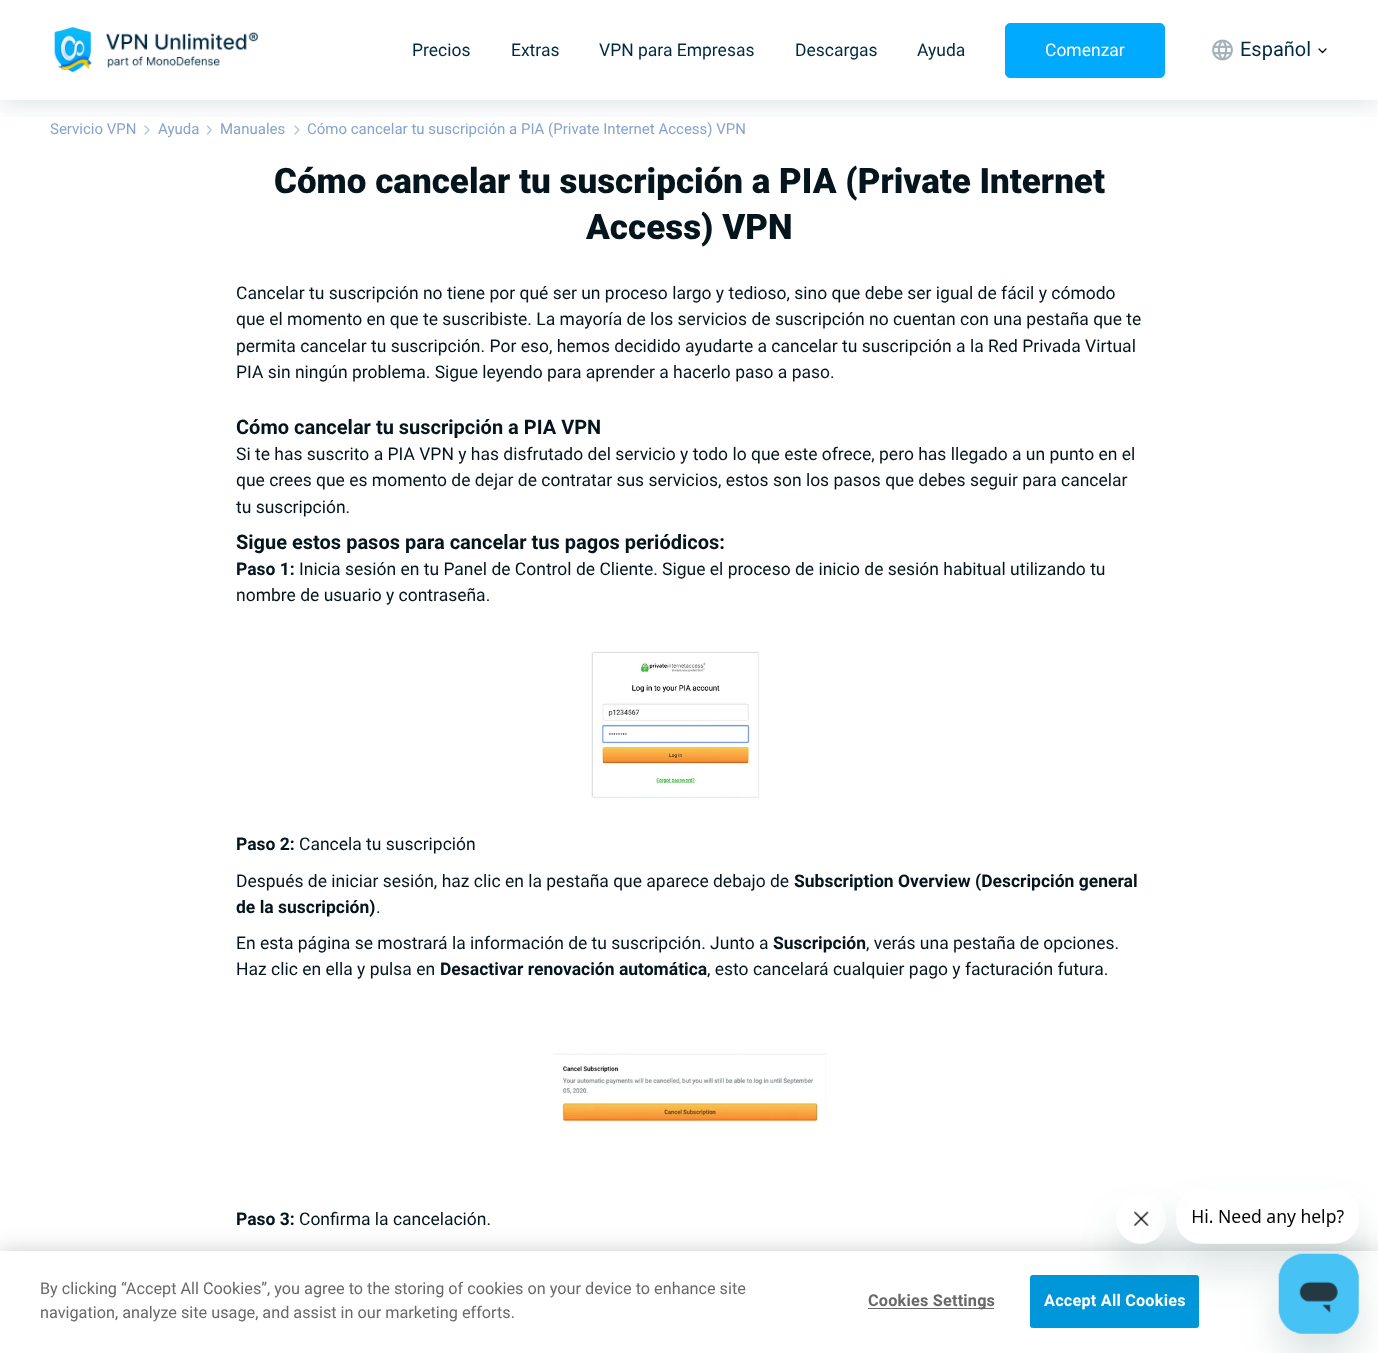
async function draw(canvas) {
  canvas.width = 1378;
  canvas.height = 1353;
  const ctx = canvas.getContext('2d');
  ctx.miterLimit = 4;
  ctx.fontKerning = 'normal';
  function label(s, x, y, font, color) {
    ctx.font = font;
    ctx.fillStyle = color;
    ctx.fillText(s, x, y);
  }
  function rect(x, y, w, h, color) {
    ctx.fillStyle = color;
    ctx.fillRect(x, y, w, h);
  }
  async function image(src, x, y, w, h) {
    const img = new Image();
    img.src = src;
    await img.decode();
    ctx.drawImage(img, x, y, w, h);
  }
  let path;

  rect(0, 0, 1378, 1353, '#fff');
  path = new Path2D('M145 126L149 130L145 134');
  ctx.strokeStyle = '#aec1dd';
  ctx.lineWidth = 1.2;
  ctx.lineCap = 'round';
  ctx.lineJoin = 'round';
  ctx.stroke(path);
  path = new Path2D('M207.5 126L211 130L207.5 134');
  ctx.stroke(path);
  path = new Path2D('M295 126L299 130L295 134');
  ctx.stroke(path);
  ctx.save();
  ctx.beginPath();
  ctx.rect(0, 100, 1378, 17);
  ctx.clip();
  ctx.fillStyle = '#002a401f';
  ctx.filter = 'blur(12.5px)';
  ctx.beginPath();
  ctx.rect(0, 5, 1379, 100);
  ctx.fill();
  ctx.filter = 'none';
  ctx.restore();
  await image('assets/img1.png', 54, 27, 204, 45);
  label('Precios', 412, 56, '17.5px Roboto', '#002a40');
  label('Extras', 511, 56, '17.5px Roboto', '#002a40');
  label('VPN para Empresas', 599, 56, '17.5px Roboto', '#002a40');
  label('Descargas', 795, 56, '17.5px Roboto', '#002a40');
  label('Ayuda', 917, 56, '17.5px Roboto', '#002a40');
  ctx.fillStyle = '#0af';
  ctx.beginPath();
  ctx.roundRect(1005.5, 23.5, 159, 54, 4.5);
  ctx.fill();
  ctx.strokeStyle = '#0af';
  ctx.lineWidth = 1;
  ctx.lineJoin = 'miter';
  ctx.stroke();
  label('Comenzar', 1045, 56, '17.5px Roboto', '#fff');
  await image('assets/img2.png', 1212, 39, 21, 22);
  label('Español', 1240, 56, '20px Roboto', '#002a40');
  path = new Path2D('M1319 49L1322.5 52.5L1326 49');
  ctx.strokeStyle = '#000';
  ctx.lineWidth = 1.2;
  ctx.lineJoin = 'round';
  ctx.stroke(path);
  label('Servicio VPN', 50, 134, '15px Roboto', '#86a3cd');
  label('Ayuda', 158, 134, '15px Roboto', '#86a3cd');
  label('Manuales', 220, 134, '15px Roboto', '#86a3cd');
  label('Cómo cancelar tu suscripción a PIA (Private Internet Access) VPN', 307, 134, '15px Roboto', '#86a3cd');
  label('Cómo cancelar tu suscripción a PIA (Private Internet', 274, 193, '900 35px Roboto', '#05151d');
  label('Access) VPN', 586, 239, '900 35px Roboto', '#05151d');
  label('Cancelar tu suscripción no tiene por qué ser un proceso largo y tedioso, sino que debe ser igual de fácil y cómodo', 236, 299, '17.5px Roboto', '#05151d');
  label('que el momento en que te suscribiste. La mayoría de los servicios de suscripción no cuentan con una pestaña que te', 236, 325, '17.5px Roboto', '#05151d');
  label('permita cancelar tu suscripción. Por eso, hemos decidido ayudarte a cancelar tu suscripción a la Red Privada Virtual', 236, 352, '17.5px Roboto', '#05151d');
  label('PIA sin ningún problema. Sigue leyendo para aprender a hacerlo paso a paso.', 236, 378, '17.5px Roboto', '#05151d');
  label('Cómo cancelar tu suscripción a PIA VPN', 236, 434, 'bold 20px Roboto', '#05151d');
  label('Si te has suscrito a PIA VPN y has disfrutado del servicio y todo lo que este ofrece, pero has llegado a un punto en el', 236, 460, '17.5px Roboto', '#05151d');
  label('que crees que es momento de dejar de contratar sus servicios, estos son los pasos que debes seguir para cancelar', 236, 486, '17.5px Roboto', '#05151d');
  label('tu suscripción.', 236, 513, '17.5px Roboto', '#05151d');
  label('Sigue estos pasos para cancelar tus pagos periódicos:', 236, 549, 'bold 20px Roboto', '#05151d');
  label('Paso 1:', 236, 575, 'bold 17.5px Roboto', '#05151d');
  label('Inicia sesión en tu Panel de Control de Cliente. Sigue el proceso de inicio de sesión habitual utilizando tu', 299, 575, '17.5px Roboto', '#05151d');
  label('nombre de usuario y contraseña.', 236, 601, '17.5px Roboto', '#05151d');
  await image('assets/img3.png', 591, 651, 169, 148);
  label('Paso 2:', 236, 850, 'bold 17.5px Roboto', '#05151d');
  label('Cancela tu suscripción', 299, 850, '17.5px Roboto', '#05151d');
  label('Después de iniciar sesión, haz clic en la pestaña que aparece debajo de', 236, 887, '17.5px Roboto', '#05151d');
  label('Subscription Overview (Descripción general', 794, 887, 'bold 17.5px Roboto', '#05151d');
  label('de la suscripción)', 236, 913, 'bold 17.5px Roboto', '#05151d');
  label('.', 376, 913, '17.5px Roboto', '#05151d');
  label('En esta página se mostrará la información de tu suscripción. Junto a', 236, 949, '17.5px Roboto', '#05151d');
  label('Suscripción', 773, 949, 'bold 17.5px Roboto', '#05151d');
  label(', verás una pestaña de opciones.', 866, 949, '17.5px Roboto', '#05151d');
  label('Haz clic en ella y pulsa en', 236, 975, '17.5px Roboto', '#05151d');
  label('Desactivar renovación automática', 440, 975, 'bold 17.5px Roboto', '#05151d');
  label(', esto cancelará cualquier pago y facturación futura.', 707, 975, '17.5px Roboto', '#05151d');
  await image('assets/img4.png', 553, 1053, 274, 76);
  label('Paso 3:', 236, 1225, 'bold 17.5px Roboto', '#05151d');
  label('Confirma la cancelación.', 299, 1225, '17.5px Roboto', '#05151d');
  ctx.fillStyle = '#00000033';
  ctx.filter = 'blur(11px)';
  ctx.beginPath();
  ctx.rect(0, 1251, 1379, 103);
  ctx.fill();
  ctx.filter = 'none';
  rect(0, 1251, 1378, 102, '#fff');
  label('By clicking “Accept All Cookies”, you agree to the storing of cookies on your device to enhance site', 40, 1294, '16.25px Roboto', '#696969');
  label('navigation, analyze site usage, and assist in our marketing efforts.', 40, 1318, '16.25px Roboto', '#696969');
  rect(868, 1308, 126, 1, '#696969');
  ctx.letterSpacing = '0.2px';
  label('Cookies Settings', 868, 1306, 'bold 16.25px Roboto', '#696969');
  ctx.fillStyle = '#0097da';
  ctx.beginPath();
  ctx.roundRect(1030.5, 1275.5, 168, 52, 2);
  ctx.fill();
  ctx.strokeStyle = '#0097da';
  ctx.lineWidth = 1;
  ctx.lineJoin = 'miter';
  ctx.stroke();
  label('Accept All Cookies', 1044, 1306, 'bold 16.25px Roboto', '#fff');
  ctx.save();
  path = new Path2D('M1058 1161H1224V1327H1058ZM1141 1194C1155 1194 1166 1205 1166 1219C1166 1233 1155 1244 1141 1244C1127 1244 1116 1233 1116 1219C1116 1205 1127 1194 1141 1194Z');
  ctx.clip(path, 'evenodd');
  ctx.fillStyle = '#17494d26';
  ctx.filter = 'blur(19px)';
  ctx.beginPath();
  ctx.roundRect(1116, 1219, 50, 50, 25);
  ctx.fill();
  ctx.filter = 'none';
  ctx.restore();
  await image('assets/img6.png', 1123, 1211, 36, 33);
  ctx.save();
  path = new Path2D('M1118 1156H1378V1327H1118ZM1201 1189H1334C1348 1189 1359 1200 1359 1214V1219C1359 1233 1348 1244 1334 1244H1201C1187 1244 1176 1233 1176 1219V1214C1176 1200 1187 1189 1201 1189Z');
  ctx.clip(path, 'evenodd');
  ctx.fillStyle = '#17494d26';
  ctx.filter = 'blur(19px)';
  ctx.beginPath();
  ctx.roundRect(1176, 1214, 183, 55, 25);
  ctx.fill();
  ctx.filter = 'none';
  ctx.restore();
  await image('assets/img5.png', 1177, 1209, 175, 35);
  ctx.fillStyle = '#17494d26';
  ctx.filter = 'blur(19px)';
  ctx.beginPath();
  ctx.roundRect(1279, 1279, 80, 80, 25);
  ctx.fill();
  ctx.filter = 'none';
  await image('assets/img7.png', 1278, 1253, 81, 81);
}

draw(document.querySelector('canvas'));
